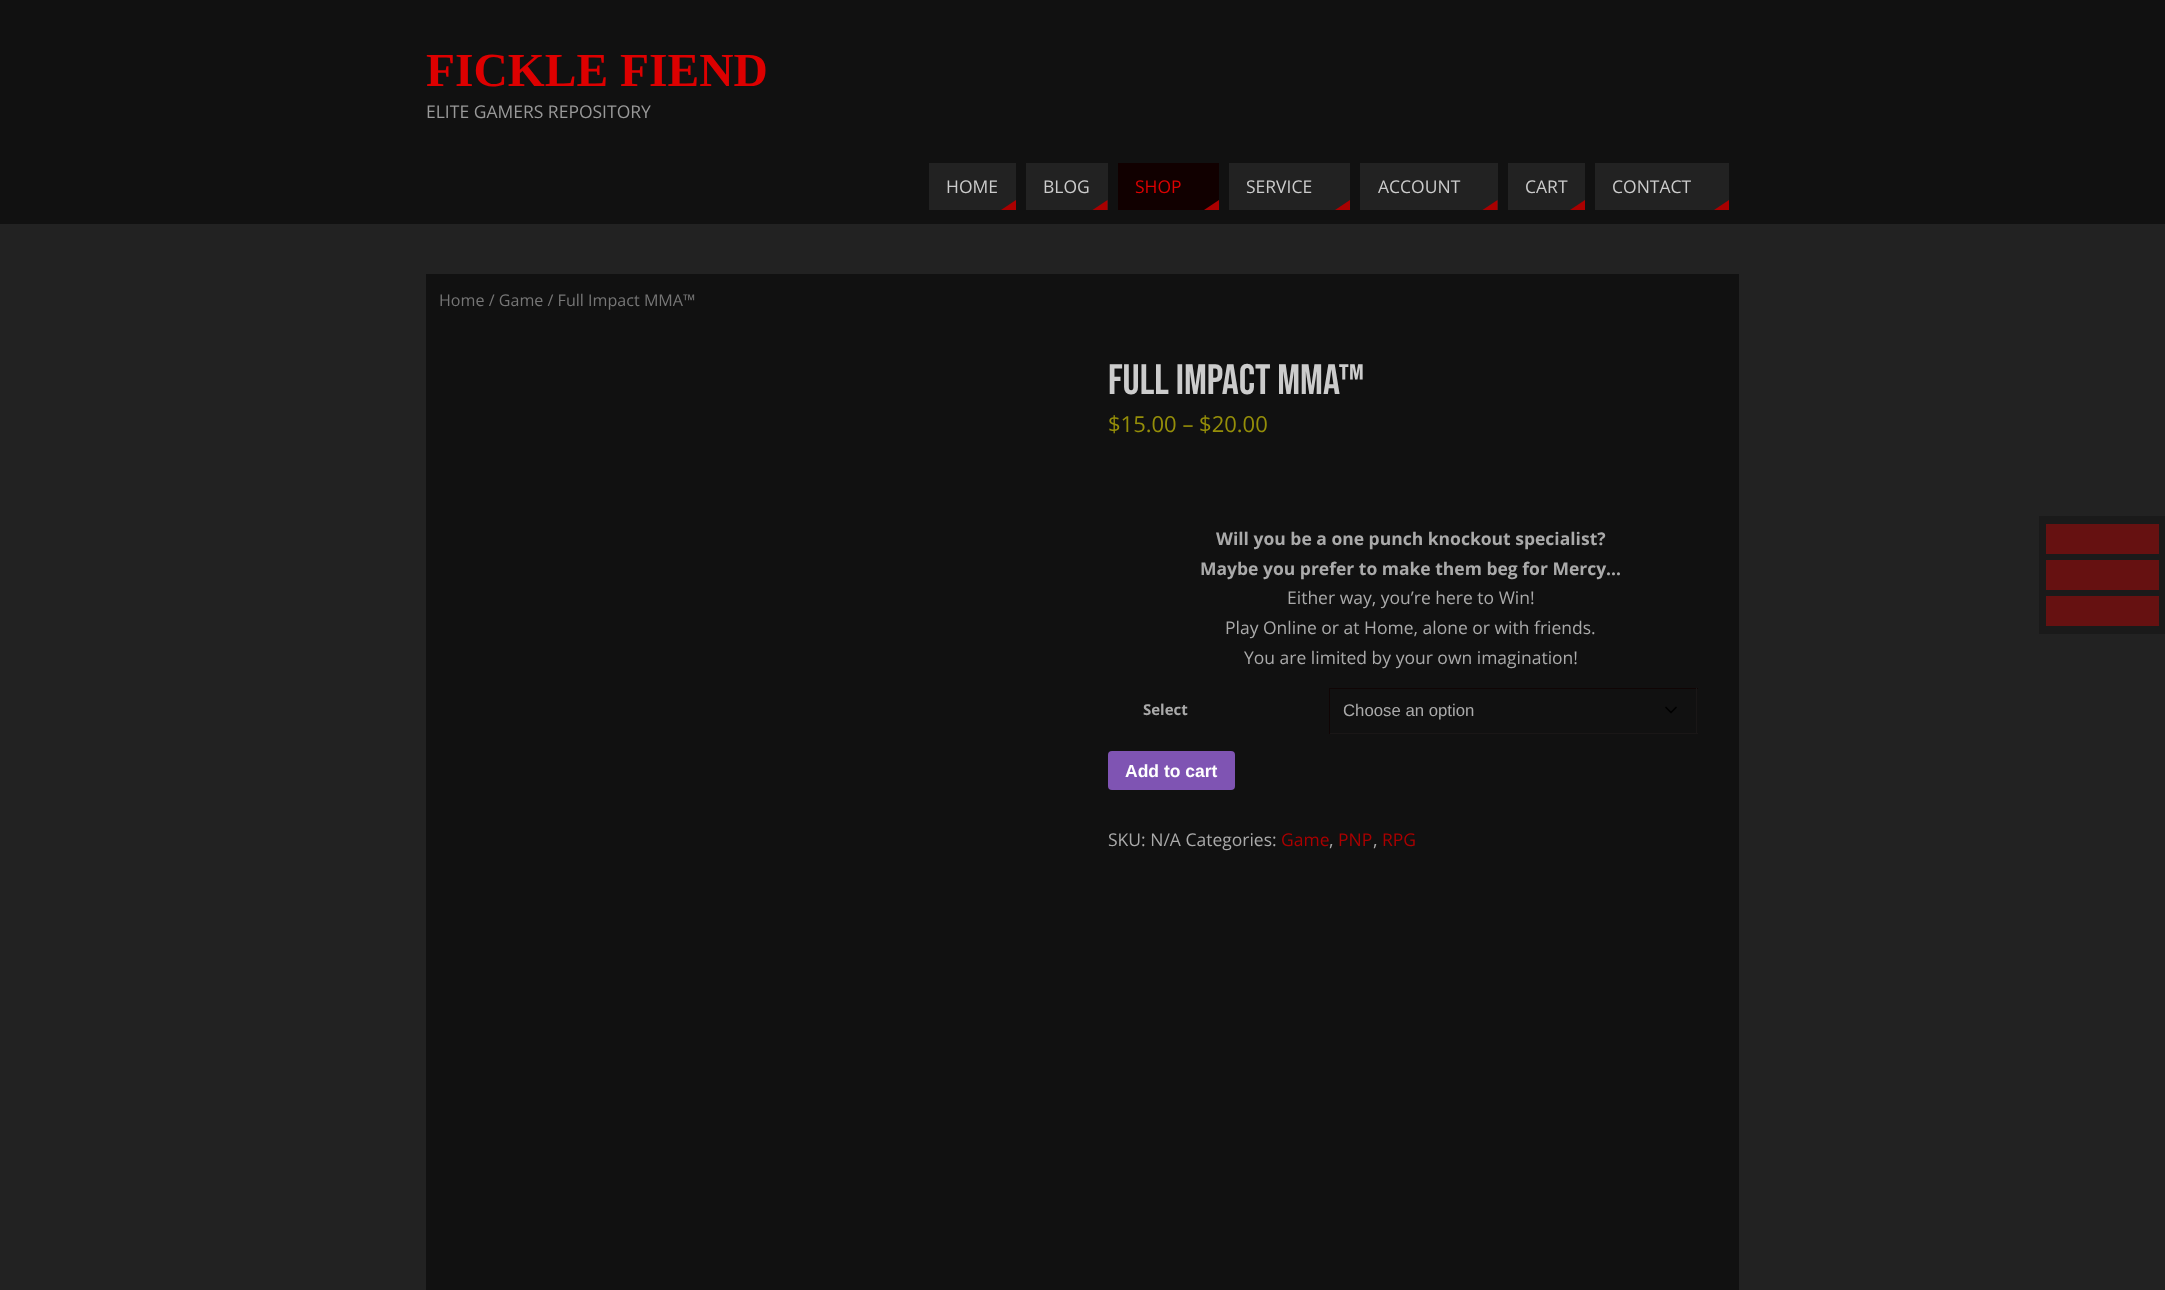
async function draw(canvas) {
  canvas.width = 2165;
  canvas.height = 1290;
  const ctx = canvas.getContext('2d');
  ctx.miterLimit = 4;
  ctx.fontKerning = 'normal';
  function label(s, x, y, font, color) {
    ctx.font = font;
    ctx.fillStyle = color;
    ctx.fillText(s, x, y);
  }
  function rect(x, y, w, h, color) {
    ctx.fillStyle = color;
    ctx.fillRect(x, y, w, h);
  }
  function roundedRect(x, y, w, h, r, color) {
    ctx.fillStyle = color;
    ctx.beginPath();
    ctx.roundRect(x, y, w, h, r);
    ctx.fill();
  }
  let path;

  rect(0, 0, 2165, 1290, '#222');
  rect(0, 0, 2165, 224, '#111');
  label('FICKLE FIEND', 426, 86, 'bold 47.5px Liberation Serif', '#d00');
  label('ELITE GAMERS REPOSITORY', 426, 118, '17.5px Open Sans', '#999');
  rect(929, 163, 87, 47, '#222');
  label('HOME', 946, 193, '17.5px Open Sans', '#ccc');
  ctx.fillStyle = '#a00';
  path = new Path2D('M1016 210H1001L1016 200Z');
  ctx.fill(path);
  rect(1026, 163, 82, 47, '#222');
  label('BLOG', 1043, 193, '17.5px Open Sans', '#ccc');
  ctx.fillStyle = '#a00';
  path = new Path2D('M1107.5 210H1092.5L1107.5 200Z');
  ctx.fill(path);
  rect(1118, 163, 101, 47, '#100');
  label('SHOP', 1135, 193, '17.5px Open Sans', '#d00');
  ctx.fillStyle = '#a00';
  path = new Path2D('M1219 210H1204L1219 200Z');
  ctx.fill(path);
  rect(1229, 163, 121, 47, '#222');
  label('SERVICE', 1246, 193, '17.5px Open Sans', '#ccc');
  ctx.fillStyle = '#a00';
  path = new Path2D('M1350 210H1335L1350 200Z');
  ctx.fill(path);
  rect(1360, 163, 138, 47, '#222');
  label('ACCOUNT', 1378, 193, '17.5px Open Sans', '#ccc');
  ctx.fillStyle = '#a00';
  path = new Path2D('M1497.5 210H1482.5L1497.5 200Z');
  ctx.fill(path);
  rect(1508, 163, 77, 47, '#222');
  label('CART', 1525, 193, '17.5px Open Sans', '#ccc');
  ctx.fillStyle = '#a00';
  path = new Path2D('M1585 210H1570L1585 200Z');
  ctx.fill(path);
  rect(1595, 163, 134, 47, '#222');
  label('CONTACT', 1612, 193, '17.5px Open Sans', '#ccc');
  ctx.fillStyle = '#a00';
  path = new Path2D('M1729 210H1714L1729 200Z');
  ctx.fill(path);
  rect(426, 274, 1313, 1016, '#111');
  label('Home / Game / Full Impact MMA™', 439, 306, '16.1px Open Sans', '#767676');
  label('Full Impact MMA™', 1108, 394, '42.5px Bebas Neue', '#ccc');
  label('$15.00 – $20.00', 1108, 432, '22px Open Sans', '#958e09');
  label('Will you be a one punch knockout specialist?', 1216, 545, 'bold 17.5px Open Sans', '#aaa');
  label('Maybe you prefer to make them beg for Mercy…', 1200, 575, 'bold 17.5px Open Sans', '#aaa');
  label('Either way, you’re here to Win!', 1287, 604, '17.5px Open Sans', '#aaa');
  label('Play Online or at Home, alone or with friends.', 1225, 634, '17.5px Open Sans', '#aaa');
  label('You are limited by your own imagination!', 1244, 664, '17.5px Open Sans', '#aaa');
  label('Select', 1143, 715, 'bold 15px Open Sans', '#aaa');
  path = new Path2D('M1666 707.5L1671 712.5L1676 707.5');
  ctx.strokeStyle = '#000';
  ctx.lineWidth = 1.7;
  ctx.lineCap = 'round';
  ctx.lineJoin = 'round';
  ctx.stroke(path);
  rect(1329, 688, 369, 1, '#100505');
  rect(1696, 688, 1, 46, '#1a1717');
  rect(1329, 733, 369, 1, '#1a1717');
  rect(1329, 688, 1, 46, '#100505');
  label('Choose an option', 1343, 716, '16.75px Liberation Sans', '#aaa');
  roundedRect(1108, 751, 127, 39, 4, '#7f54b3');
  label('Add to cart', 1125, 777, 'bold 17.5px Liberation Sans', '#fff');
  label('SKU: N/A Categories:', 1108, 846, '17.5px Open Sans', '#aaa');
  label('Game', 1281, 846, '17.5px Open Sans', '#a00');
  label(',', 1329, 846, '17.5px Open Sans', '#aaa');
  label('PNP', 1338, 846, '17.5px Open Sans', '#a00');
  label(',', 1373, 846, '17.5px Open Sans', '#aaa');
  label('RPG', 1382, 846, '17.5px Open Sans', '#a00');
  rect(2039, 516, 126, 118, '#1a1a1a');
  rect(2046, 524, 113, 30, '#611');
  rect(2046, 560, 113, 30, '#611');
  rect(2046, 596, 113, 30, '#611');
}

draw(document.querySelector('canvas'));
